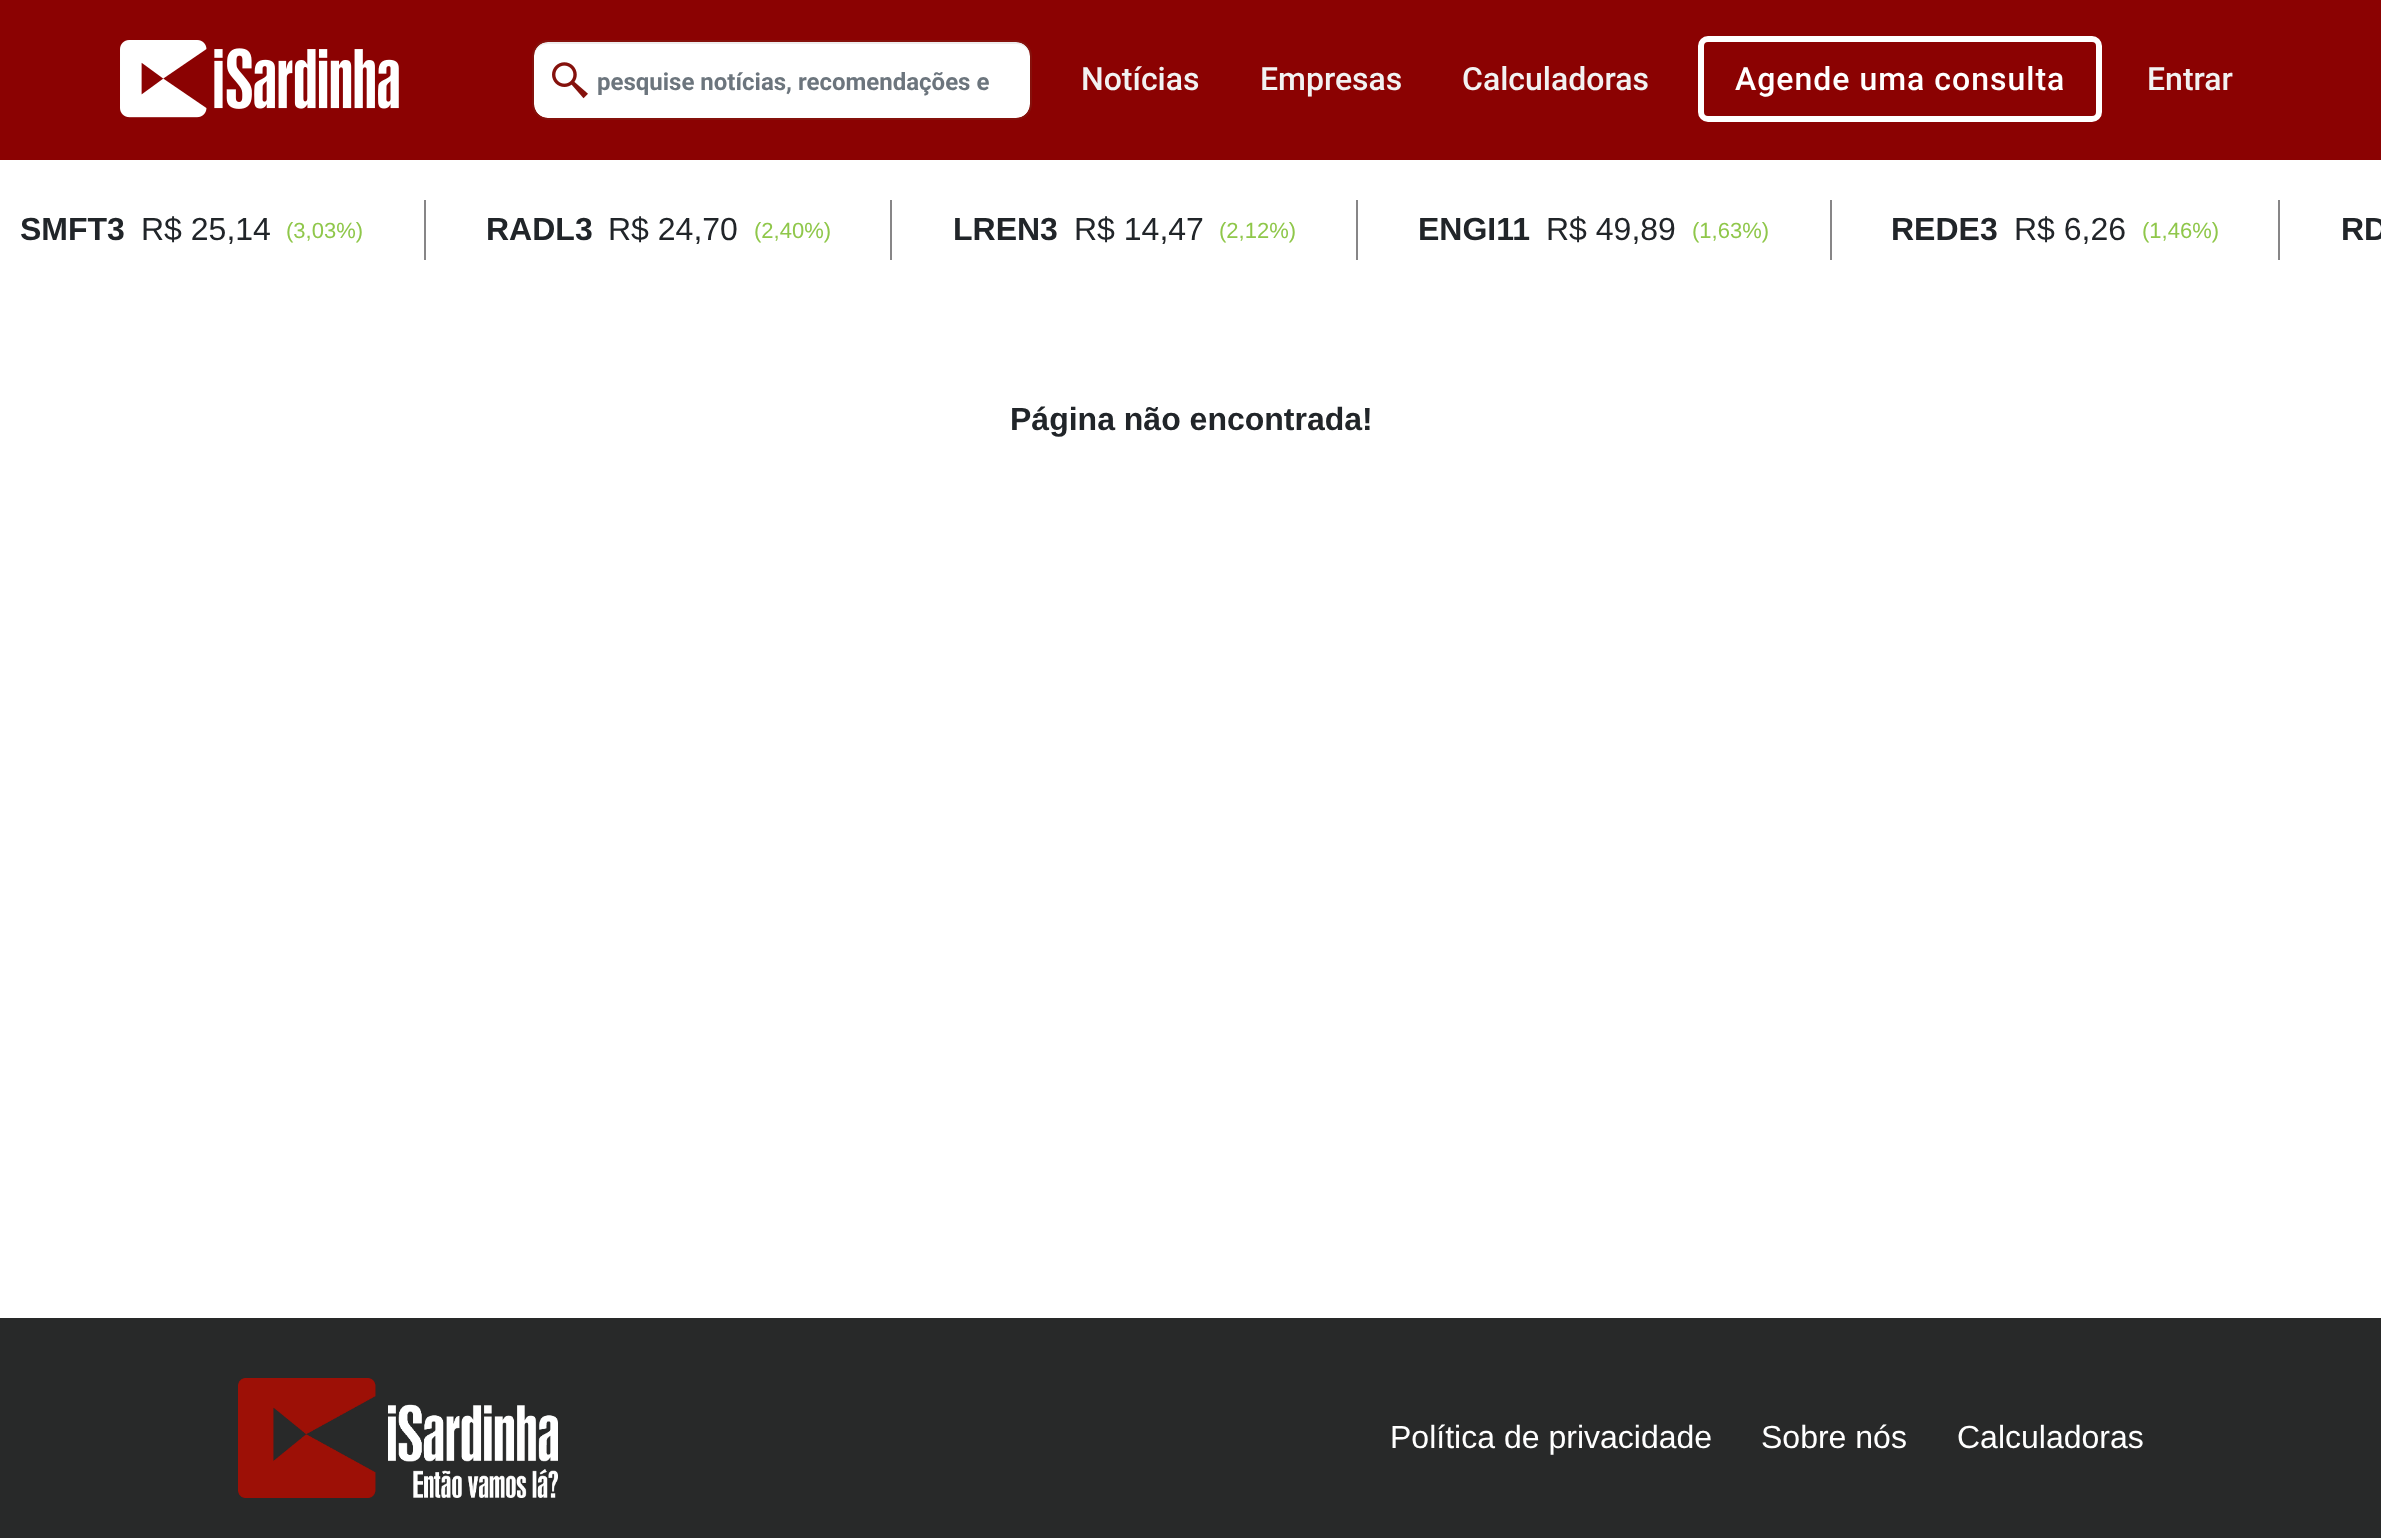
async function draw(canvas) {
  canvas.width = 2381;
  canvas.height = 1538;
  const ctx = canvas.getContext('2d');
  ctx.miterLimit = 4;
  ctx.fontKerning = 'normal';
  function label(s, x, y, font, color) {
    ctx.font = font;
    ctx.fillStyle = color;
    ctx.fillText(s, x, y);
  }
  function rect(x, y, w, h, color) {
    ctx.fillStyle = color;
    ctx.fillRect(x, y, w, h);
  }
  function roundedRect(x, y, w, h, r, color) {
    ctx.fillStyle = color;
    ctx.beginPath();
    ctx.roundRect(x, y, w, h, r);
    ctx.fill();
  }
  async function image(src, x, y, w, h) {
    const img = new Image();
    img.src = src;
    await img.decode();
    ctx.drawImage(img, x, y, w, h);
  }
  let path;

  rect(0, 0, 2381, 1538, '#fff');
  rect(0, 0, 2381, 160, '#8b0202');
  await image('assets/img1.png', 120, 40, 279, 78);
  roundedRect(534, 42, 496, 76, 14, '#fff');
  ctx.fillStyle = '#00000012';
  path = new Path2D('M548 44H1016C1024 44 1030 50 1030 58V56C1030 48 1024 42 1016 42H548C540 42 534 48 534 56V58C534 50 540 44 548 44Z');
  ctx.fill(path);
  ctx.beginPath();
  ctx.roundRect(533, 41, 498, 78, 15);
  ctx.strokeStyle = '#85110c';
  ctx.lineWidth = 2;
  ctx.stroke();
  await image('assets/img2.png', 552, 62, 36, 37);
  label('pesquise notícias, recomendações e', 597, 90, 'bold 24px Roboto', '#6c757d');
  label('Notícias', 1081, 90, '500 32px Roboto', '#f2f2f2');
  label('Empresas', 1260, 90, '500 32px Roboto', '#f2f2f2');
  label('Calculadoras', 1462, 90, '500 32px Roboto', '#f2f2f2');
  ctx.beginPath();
  ctx.roundRect(1701, 39, 398, 80, 7);
  ctx.strokeStyle = '#fff';
  ctx.lineWidth = 6;
  ctx.stroke();
  ctx.letterSpacing = '1px';
  label('Agende uma consulta', 1735, 90, '500 32px Roboto', '#fff');
  ctx.letterSpacing = '0px';
  label('Entrar', 2147, 90, '500 32px Roboto', '#f2f2f2');
  label('SMFT3', 20, 240, 'bold 32px Liberation Sans', '#212529');
  label('R$ 25,14', 141, 240, '32px Liberation Sans', '#212529');
  label('(3,03%)', 286, 238, '22px Liberation Sans', '#8fc74a');
  rect(424, 200, 2, 60, '#878687');
  label('RADL3', 486, 240, 'bold 32px Liberation Sans', '#212529');
  label('R$ 24,70', 608, 240, '32px Liberation Sans', '#212529');
  label('(2,40%)', 754, 238, '22px Liberation Sans', '#8fc74a');
  rect(890, 200, 2, 60, '#878687');
  label('LREN3', 953, 240, 'bold 32px Liberation Sans', '#212529');
  label('R$ 14,47', 1074, 240, '32px Liberation Sans', '#212529');
  label('(2,12%)', 1219, 238, '22px Liberation Sans', '#8fc74a');
  rect(1356, 200, 2, 60, '#878687');
  label('ENGI11', 1418, 240, 'bold 32px Liberation Sans', '#212529');
  label('R$ 49,89', 1546, 240, '32px Liberation Sans', '#212529');
  label('(1,63%)', 1692, 238, '22px Liberation Sans', '#8fc74a');
  rect(1830, 200, 2, 60, '#878687');
  label('REDE3', 1891, 240, 'bold 32px Liberation Sans', '#212529');
  label('R$ 6,26', 2014, 240, '32px Liberation Sans', '#212529');
  label('(1,46%)', 2142, 238, '22px Liberation Sans', '#8fc74a');
  rect(2278, 200, 2, 60, '#878687');
  label('RD', 2341, 240, 'bold 32px Liberation Sans', '#212529');
  label('Página não encontrada!', 1010, 430, 'bold 32px Liberation Sans', '#212529');
  rect(0, 1318, 2381, 220, '#282929');
  await image('assets/img3.png', 238, 1378, 320, 120);
  label('Política', 1390, 1448, '32px Liberation Sans', '#fff');
  label('de privacidade', 1504, 1448, '32px Liberation Sans', '#fff');
  label('Sobre nós', 1761, 1448, '32px Liberation Sans', '#fff');
  label('Calculadoras', 1957, 1448, '32px Liberation Sans', '#fff');
}

draw(document.querySelector('canvas'));
